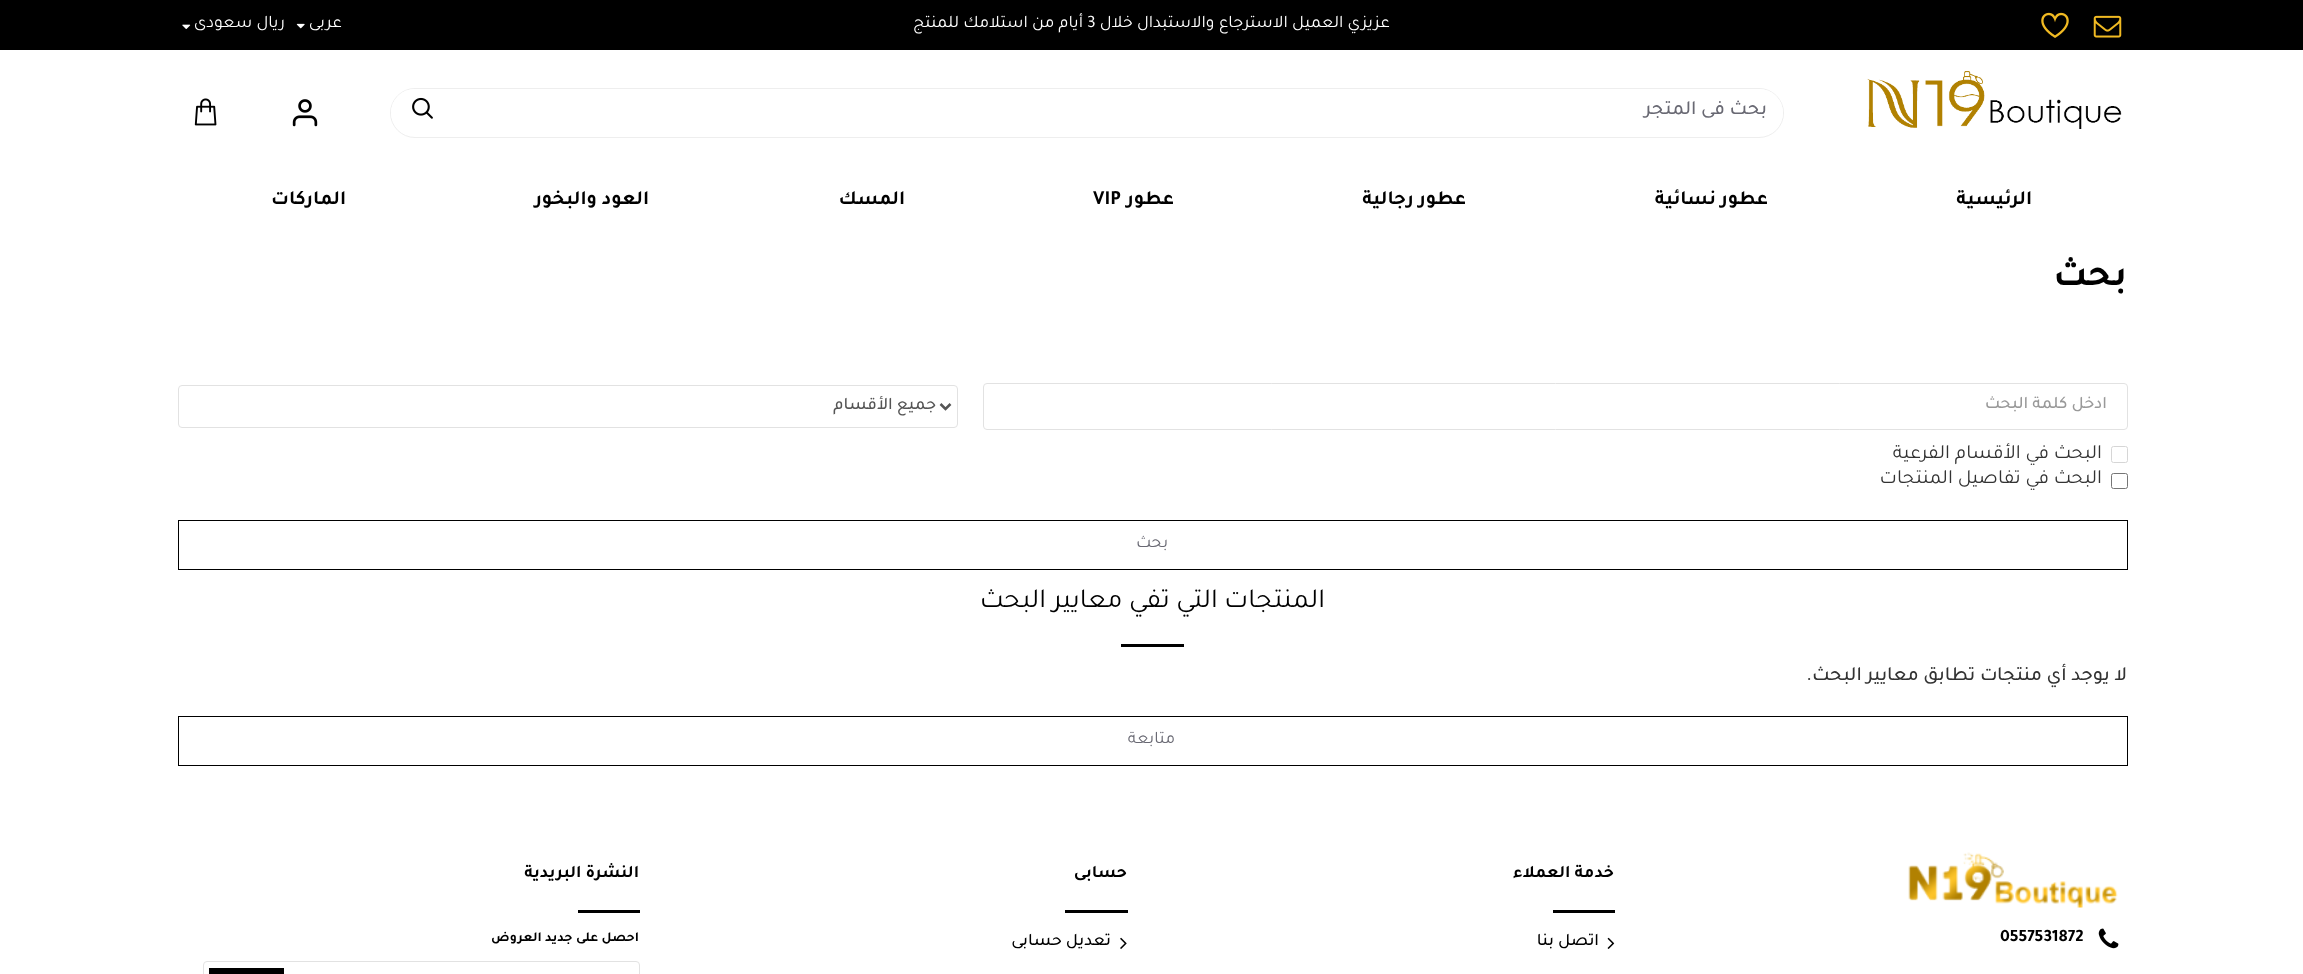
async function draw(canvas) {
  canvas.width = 2303;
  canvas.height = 974;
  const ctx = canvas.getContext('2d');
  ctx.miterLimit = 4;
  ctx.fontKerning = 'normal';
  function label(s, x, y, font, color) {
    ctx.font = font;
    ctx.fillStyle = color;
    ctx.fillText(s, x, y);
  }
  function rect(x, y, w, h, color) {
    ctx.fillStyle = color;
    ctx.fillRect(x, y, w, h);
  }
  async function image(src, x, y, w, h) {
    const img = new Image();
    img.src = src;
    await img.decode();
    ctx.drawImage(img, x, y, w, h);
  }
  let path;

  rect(0, 0, 2303, 974, '#fff');
  rect(0, 0, 2303, 50, '#000');
  await image('assets/img1.png', 2093, 15, 29, 23);
  await image('assets/img2.png', 2041, 12, 28, 26);
  ctx.direction = 'rtl';
  label('عزيزي العميل الاسترجاع والاستبدال خلال', 1390, 27, '17.5px Tajawal', '#fff');
  ctx.direction = 'ltr';
  label('3', 1087, 27, '17.5px Tajawal', '#fff');
  ctx.direction = 'rtl';
  label('أيام من استلامك للمنتج', 1083, 27, '17.5px Tajawal', '#fff');
  label('عربى', 342, 27, '17.5px Tajawal', '#fff');
  await image('assets/img3.png', 296, 23, 9, 6);
  label('ريال سعودى', 285, 27, '17.5px Tajawal', '#fff');
  await image('assets/img4.png', 182, 24, 9, 5);
  await image('assets/img5.png', 1867, 71, 255, 58);
  ctx.beginPath();
  ctx.roundRect(390.5, 88.5, 1393, 49, 24.5);
  ctx.strokeStyle = '#eee';
  ctx.stroke();
  ctx.beginPath();
  ctx.roundRect(454, 89, 1329, 47, [0, 23.5, 23.5, 0]);
  ctx.fill();
  label('بحث فى المتجر', 1767, 114, '500 20px Tajawal', '#696973');
  ctx.fillStyle = '#fff';
  ctx.beginPath();
  ctx.roundRect(391, 89, 63, 47, [23.5, 0, 0, 23.5]);
  ctx.fill();
  await image('assets/img6.png', 412, 97, 21, 22);
  await image('assets/img7.png', 292, 99, 26, 28);
  await image('assets/img8.png', 194, 98, 23, 28);
  label('الرئيسية', 2032, 204, 'bold 20px Tajawal', '#000');
  label('عطور نسائية', 1768, 204, 'bold 20px Tajawal', '#000');
  label('عطور رجالية', 1466, 204, 'bold 20px Tajawal', '#000');
  label('عطور', 1174, 204, 'bold 20px Tajawal', '#000');
  ctx.direction = 'ltr';
  label('VIP', 1093, 204, 'bold 20px Tajawal', '#000');
  ctx.direction = 'rtl';
  label('المسك', 905, 204, 'bold 20px Tajawal', '#000');
  label('العود والبخور', 649, 204, 'bold 20px Tajawal', '#000');
  label('الماركات', 346, 204, 'bold 20px Tajawal', '#000');
  label('بحث', 2127, 285, 'bold 38px Tajawal', '#000');
  ctx.beginPath();
  ctx.roundRect(983.5, 383.5, 1144, 46, 3.5);
  ctx.strokeStyle = '#e2e2e2';
  ctx.stroke();
  label('ادخل كلمة البحث', 2107, 408, '500 17.5px Tajawal', '#999');
  ctx.beginPath();
  ctx.roundRect(178.5, 385.5, 779, 42, 3.5);
  ctx.stroke();
  path = new Path2D('M940.5 404L945.5 409L950.5 404');
  ctx.strokeStyle = '#555';
  ctx.lineWidth = 2.5;
  ctx.stroke(path);
  label('جميع الأقسام', 936, 409, '500 17.5px Tajawal', '#555');
  ctx.beginPath();
  ctx.roundRect(2111.5, 446.5, 16, 16, 2);
  ctx.strokeStyle = '#d6d6d6';
  ctx.lineWidth = 1;
  ctx.stroke();
  label('البحث في الأقسام الفرعية', 2102, 458, '20px Tajawal', '#333');
  ctx.beginPath();
  ctx.roundRect(2111.5, 473.5, 16, 15, 2);
  ctx.strokeStyle = '#767676';
  ctx.stroke();
  label('البحث في تفاصيل المنتجات', 2102, 483, '20px Tajawal', '#333');
  ctx.strokeStyle = '#000';
  ctx.strokeRect(178.5, 520.5, 1949, 49);
  label('بحث', 1168, 547, '17.5px Tajawal', '#696973');
  label('المنتجات التي تفي معايير البحث', 1325, 607, '27.5px Tajawal', '#000');
  rect(1121, 644, 63, 3, '#000');
  label('لا يوجد أي منتجات تطابق معايير البحث.', 2127, 680, '500 20px Tajawal', '#333');
  ctx.strokeRect(178.5, 716.5, 1949, 49);
  label('متابعة', 1175, 743, '17.5px Tajawal', '#696973');
  await image('assets/img9.png', 1908, 852, 210, 56);
  await image('assets/img10.png', 2098, 928, 21, 21);
  ctx.direction = 'ltr';
  label('0557531872', 2000, 941, 'bold 17.5px Tajawal', '#000');
  ctx.direction = 'rtl';
  label('خدمة العملاء', 1614, 877, 'bold 17.5px Tajawal', '#000');
  rect(1553, 910, 62, 3, '#000');
  await image('assets/img11.png', 1607, 937, 8, 12);
  label('اتصل بنا', 1599, 945, '500 17.5px Tajawal', '#000');
  label('حسابى', 1127, 877, 'bold 17.5px Tajawal', '#000');
  rect(1065, 910, 63, 3, '#000');
  await image('assets/img12.png', 1120, 937, 7, 12);
  label('تعديل حسابى', 1111, 945, '500 17.5px Tajawal', '#000');
  label('النشرة البريدية', 639, 877, 'bold 17.5px Tajawal', '#000');
  rect(578, 910, 62, 3, '#000');
  label('احصل على جديد العروض', 639, 941, 'bold 13.75px Tajawal', '#000');
  ctx.beginPath();
  ctx.roundRect(203.5, 961.5, 436, 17, 3.5);
  ctx.strokeStyle = '#e2e2e2';
  ctx.stroke();
  rect(209, 968, 75, 6, '#000');
}

draw(document.querySelector('canvas'));
